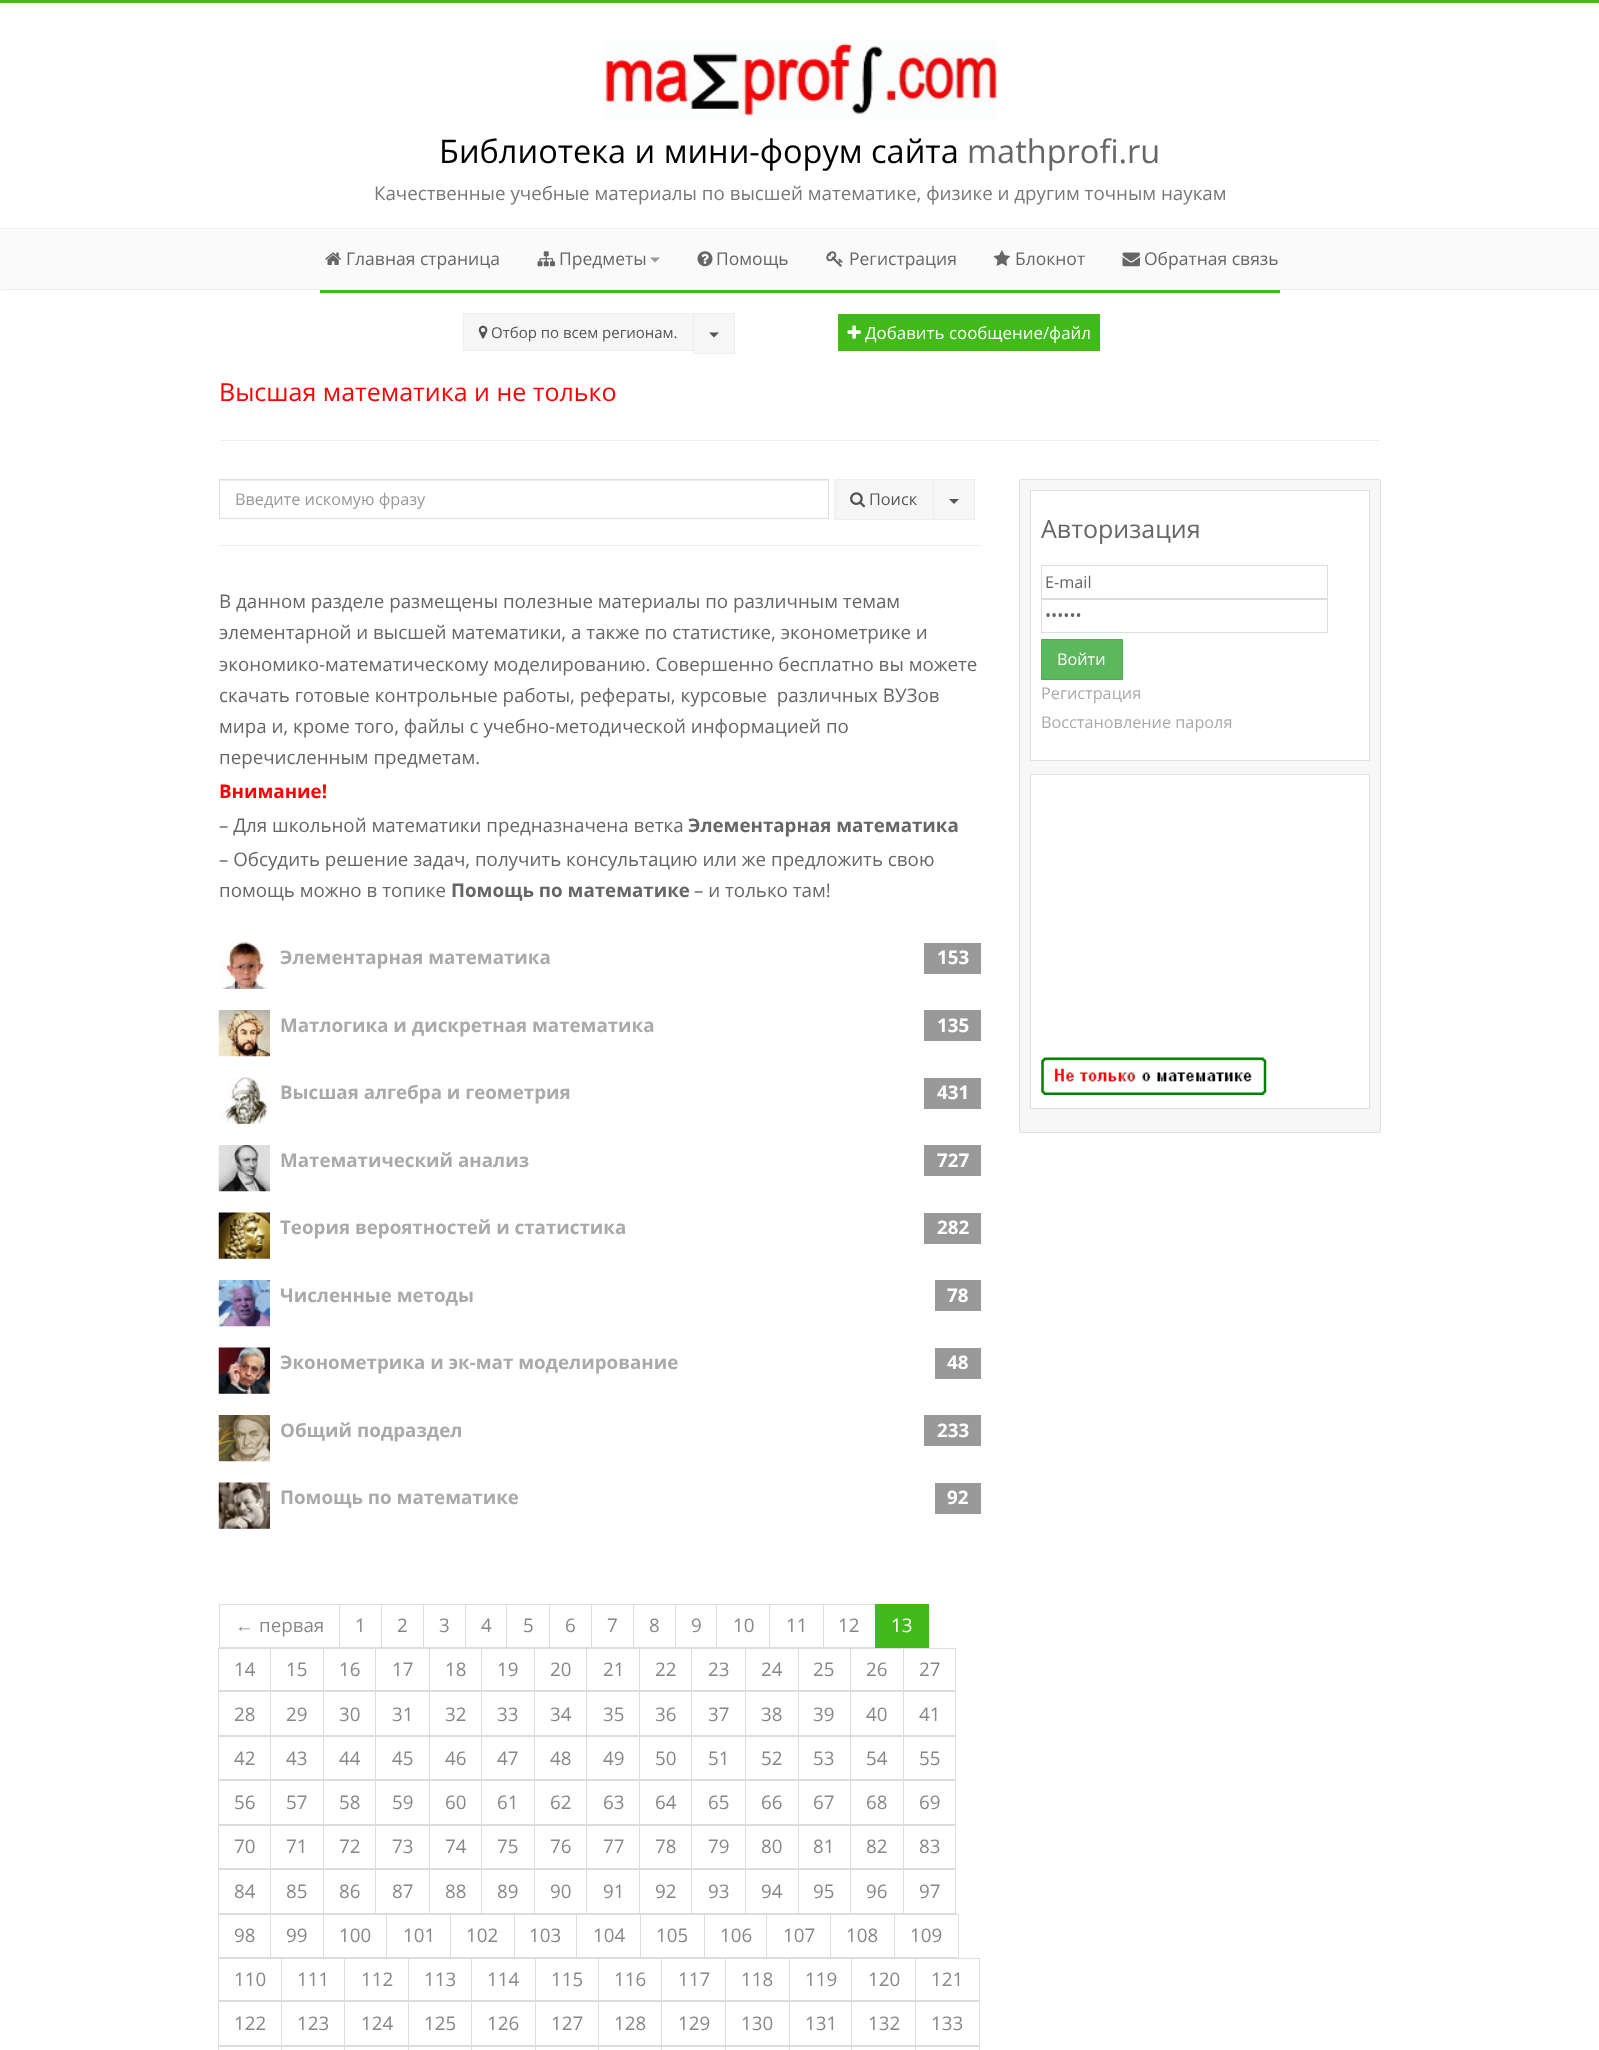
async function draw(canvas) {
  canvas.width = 1599;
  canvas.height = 2050;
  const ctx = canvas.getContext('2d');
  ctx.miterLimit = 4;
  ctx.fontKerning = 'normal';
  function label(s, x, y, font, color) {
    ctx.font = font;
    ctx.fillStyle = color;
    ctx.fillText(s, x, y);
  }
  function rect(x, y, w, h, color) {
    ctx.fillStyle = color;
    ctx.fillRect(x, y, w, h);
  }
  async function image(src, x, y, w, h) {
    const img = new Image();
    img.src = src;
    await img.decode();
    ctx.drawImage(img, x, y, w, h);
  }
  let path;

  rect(0, 0, 1599, 2050, '#fff');
  rect(0, 0, 1599, 3, '#41bb19');
  await image('assets/img1.png', 603, 38, 395, 81);
  label('Библиотека и мини-форум сайта', 439, 163, '32.5px Open Sans', '#000');
  label('mathprofi.ru', 967, 163, '32.5px Open Sans', '#666');
  label('Качественные учебные материалы по высшей математике, физике и другим точным наукам', 374, 200, '18.75px Open Sans', '#777');
  rect(0, 228, 1599, 62, '#fafafa');
  ctx.fillStyle = '#eee';
  path = new Path2D('M0 228H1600L1599 229H1Z');
  ctx.fill(path);
  path = new Path2D('M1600 290H0L1 289H1599Z');
  ctx.fill(path);
  await image('assets/img2.png', 325, 252, 16, 13);
  label('Главная страница', 346, 265, '17.5px Open Sans', '#666');
  await image('assets/img3.png', 537, 251, 18, 16);
  label('Предметы', 559, 265, '17.5px Open Sans', '#666');
  ctx.fillStyle = '#999';
  path = new Path2D('M650 257.5H660L655 262.5Z');
  ctx.fill(path);
  await image('assets/img4.png', 697, 251, 16, 16);
  label('Помощь', 716, 265, '17.5px Open Sans', '#666');
  await image('assets/img5.png', 826, 251, 17, 16);
  label('Регистрация', 849, 265, '17.5px Open Sans', '#666');
  await image('assets/img6.png', 993, 250, 17, 16);
  label('Блокнот', 1015, 265, '17.5px Open Sans', '#666');
  await image('assets/img7.png', 1122, 252, 18, 15);
  label('Обратная связь', 1144, 265, '17.5px Open Sans', '#666');
  rect(320, 290, 960, 3, '#41bb19');
  ctx.fillStyle = '#f6f6f6';
  ctx.beginPath();
  ctx.rect(463.5, 313.5, 230, 37);
  ctx.fill();
  ctx.strokeStyle = '#eee';
  ctx.stroke();
  await image('assets/img8.png', 478, 325, 10, 14);
  label('Отбор по всем регионам.', 491, 338, '15px Open Sans', '#555');
  ctx.fillStyle = '#f6f6f6';
  ctx.beginPath();
  ctx.rect(693.5, 313.5, 41, 40);
  ctx.fill();
  ctx.stroke();
  ctx.fillStyle = '#555';
  path = new Path2D('M709 332.5H719L714 337.5Z');
  ctx.fill(path);
  rect(838, 314, 262, 37, '#41bb19');
  await image('assets/img9.png', 847, 325, 14, 14);
  label('Добавить сообщение/файл', 865, 339, '16.9px Open Sans', '#fff');
  label('Высшая математика и не только', 219, 401, '25px Open Sans', '#f00');
  rect(219, 440, 1162, 1, '#eee');
  rect(220, 480, 608, 1, '#ececec');
  ctx.strokeStyle = '#ddd';
  ctx.strokeRect(219.5, 479.5, 609, 39);
  label('Введите искомую фразу', 235, 505, '16.25px Open Sans', '#999');
  ctx.fillStyle = '#f6f6f6';
  ctx.beginPath();
  ctx.rect(834.5, 479.5, 99, 40);
  ctx.fill();
  ctx.strokeStyle = '#eee';
  ctx.stroke();
  await image('assets/img10.png', 850, 492, 16, 16);
  label('Поиск', 869, 505, '16.25px Open Sans', '#555');
  ctx.fillStyle = '#f6f6f6';
  ctx.beginPath();
  ctx.rect(933.5, 479.5, 41, 40);
  ctx.fill();
  ctx.stroke();
  ctx.fillStyle = '#555';
  path = new Path2D('M949 499H959L954 504Z');
  ctx.fill(path);
  rect(219, 545, 762, 1, '#eee');
  label('В данном разделе размещены полезные материалы по различным темам', 219, 608, '18.75px Open Sans', '#666');
  label('элементарной и высшей математики, а также по статистике, эконометрике и', 219, 639, '18.75px Open Sans', '#666');
  label('экономико-математическому моделированию. Совершенно бесплатно вы можете', 219, 671, '18.75px Open Sans', '#666');
  label('скачать готовые контрольные работы, рефераты, курсовые  различных ВУЗов', 219, 702, '18.75px Open Sans', '#666');
  label('мира и, кроме того, файлы с учебно-методической информацией по', 219, 733, '18.75px Open Sans', '#666');
  label('перечисленным предметам.', 219, 764, '18.75px Open Sans', '#666');
  label('Внимание!', 219, 798, 'bold 18.75px Open Sans', '#f00');
  label('– Для школьной математики предназначена ветка', 219, 832, '18.75px Open Sans', '#666');
  label('Элементарная математика', 688, 832, 'bold 18.75px Open Sans', '#666');
  label('– Обсудить решение задач, получить консультацию или же предложить свою', 219, 866, '18.75px Open Sans', '#666');
  label('помощь можно в топике', 219, 897, '18.75px Open Sans', '#666');
  label('Помощь по математике', 451, 897, 'bold 18.75px Open Sans', '#666');
  label('– и только там!', 694, 897, '18.75px Open Sans', '#666');
  await image('assets/img11.png', 219, 942, 51, 47);
  label('Элементарная математика', 280, 964, 'bold 18.75px Open Sans', '#aaa');
  rect(924, 943, 57, 31, '#999');
  label('153', 937, 964, 'bold 18.75px Open Sans', '#fff');
  await image('assets/img12.png', 218, 1010, 52, 47);
  label('Матлогика и дискретная математика', 280, 1032, 'bold 18.75px Open Sans', '#aaa');
  rect(924, 1010, 57, 31, '#999');
  label('135', 937, 1032, 'bold 18.75px Open Sans', '#fff');
  await image('assets/img13.png', 219, 1077, 50, 47);
  label('Высшая алгебра и геометрия', 280, 1099, 'bold 18.75px Open Sans', '#aaa');
  rect(924, 1078, 57, 31, '#999');
  label('431', 937, 1099, 'bold 18.75px Open Sans', '#fff');
  await image('assets/img14.png', 218, 1145, 52, 47);
  label('Математический анализ', 280, 1167, 'bold 18.75px Open Sans', '#aaa');
  rect(924, 1145, 57, 31, '#999');
  label('727', 937, 1167, 'bold 18.75px Open Sans', '#fff');
  await image('assets/img15.png', 218, 1212, 52, 47);
  label('Теория вероятностей и статистика', 280, 1234, 'bold 18.75px Open Sans', '#aaa');
  rect(924, 1213, 57, 31, '#999');
  label('282', 937, 1234, 'bold 18.75px Open Sans', '#fff');
  await image('assets/img16.png', 218, 1280, 52, 47);
  label('Численные методы', 280, 1302, 'bold 18.75px Open Sans', '#aaa');
  rect(935, 1280, 46, 31, '#999');
  label('78', 947, 1302, 'bold 18.75px Open Sans', '#fff');
  await image('assets/img17.png', 218, 1347, 52, 47);
  label('Эконометрика и эк-мат моделирование', 280, 1369, 'bold 18.75px Open Sans', '#aaa');
  rect(935, 1348, 46, 31, '#999');
  label('48', 947, 1369, 'bold 18.75px Open Sans', '#fff');
  await image('assets/img18.png', 218, 1415, 52, 47);
  label('Общий подраздел', 280, 1437, 'bold 18.75px Open Sans', '#aaa');
  rect(924, 1415, 57, 31, '#999');
  label('233', 937, 1437, 'bold 18.75px Open Sans', '#fff');
  await image('assets/img19.png', 218, 1482, 52, 47);
  label('Помощь по математике', 280, 1504, 'bold 18.75px Open Sans', '#aaa');
  rect(935, 1483, 46, 31, '#999');
  label('92', 947, 1504, 'bold 18.75px Open Sans', '#fff');
  ctx.strokeStyle = '#ddd';
  ctx.strokeRect(219.5, 1604.5, 120, 43);
  label('←', 235, 1632, '18.75px Liberation Sans', '#888');
  label('первая', 259, 1632, '18.75px Open Sans', '#888');
  ctx.strokeRect(339.5, 1604.5, 43, 43);
  label('1', 355, 1632, '18.75px Open Sans', '#888');
  rect(382, 1605, 1, 42, '#fff');
  ctx.strokeRect(381.5, 1604.5, 42, 43);
  label('2', 397, 1632, '18.75px Open Sans', '#888');
  ctx.strokeRect(423.5, 1604.5, 42, 43);
  label('3', 439, 1632, '18.75px Open Sans', '#888');
  ctx.strokeRect(465.5, 1604.5, 42, 43);
  label('4', 481, 1632, '18.75px Open Sans', '#888');
  rect(507, 1605, 1, 42, '#fff');
  ctx.strokeRect(506.5, 1604.5, 43, 43);
  label('5', 523, 1632, '18.75px Open Sans', '#888');
  ctx.strokeRect(549.5, 1604.5, 43, 43);
  label('6', 565, 1632, '18.75px Open Sans', '#888');
  rect(592, 1605, 1, 42, '#fff');
  ctx.strokeRect(591.5, 1604.5, 42, 43);
  label('7', 607, 1632, '18.75px Open Sans', '#888');
  ctx.strokeRect(633.5, 1604.5, 42, 43);
  label('8', 649, 1632, '18.75px Open Sans', '#888');
  ctx.strokeRect(675.5, 1604.5, 42, 43);
  label('9', 691, 1632, '18.75px Open Sans', '#888');
  rect(717, 1605, 1, 42, '#fff');
  ctx.strokeRect(716.5, 1604.5, 53, 43);
  label('10', 733, 1632, '18.75px Open Sans', '#888');
  ctx.strokeRect(769.5, 1604.5, 54, 43);
  label('11', 786, 1632, '18.75px Open Sans', '#888');
  ctx.strokeRect(823.5, 1604.5, 52, 43);
  label('12', 838, 1632, '18.75px Open Sans', '#888');
  rect(875, 1604, 54, 44, '#41bb19');
  label('13', 891, 1632, '18.75px Open Sans', '#fff');
  ctx.strokeRect(218.5, 1648.5, 52, 42);
  label('14', 234, 1676, '18.75px Open Sans', '#888');
  ctx.strokeRect(270.5, 1648.5, 53, 42);
  label('15', 286, 1676, '18.75px Open Sans', '#888');
  ctx.strokeRect(323.5, 1648.5, 52, 42);
  label('16', 339, 1676, '18.75px Open Sans', '#888');
  ctx.strokeRect(375.5, 1648.5, 54, 42);
  label('17', 392, 1676, '18.75px Open Sans', '#888');
  ctx.strokeRect(429.5, 1648.5, 53, 42);
  label('18', 445, 1676, '18.75px Open Sans', '#888');
  rect(482, 1649, 1, 41, '#fff');
  ctx.strokeRect(481.5, 1648.5, 53, 42);
  label('19', 497, 1676, '18.75px Open Sans', '#888');
  ctx.strokeRect(534.5, 1648.5, 53, 42);
  label('20', 550, 1676, '18.75px Open Sans', '#888');
  rect(587, 1649, 1, 41, '#fff');
  ctx.strokeRect(586.5, 1648.5, 53, 42);
  label('21', 603, 1676, '18.75px Open Sans', '#888');
  ctx.strokeRect(639.5, 1648.5, 53, 42);
  label('22', 655, 1676, '18.75px Open Sans', '#888');
  rect(692, 1649, 1, 41, '#fff');
  ctx.strokeRect(691.5, 1648.5, 54, 42);
  label('23', 708, 1676, '18.75px Open Sans', '#888');
  ctx.strokeRect(745.5, 1648.5, 53, 42);
  label('24', 761, 1676, '18.75px Open Sans', '#888');
  ctx.strokeRect(798.5, 1648.5, 52, 42);
  label('25', 813, 1676, '18.75px Open Sans', '#888');
  ctx.strokeRect(850.5, 1648.5, 53, 42);
  label('26', 866, 1676, '18.75px Open Sans', '#888');
  ctx.strokeRect(903.5, 1648.5, 52, 42);
  label('27', 919, 1676, '18.75px Open Sans', '#888');
  ctx.strokeRect(218.5, 1691.5, 52, 44);
  label('28', 234, 1721, '18.75px Open Sans', '#888');
  ctx.strokeRect(270.5, 1691.5, 53, 44);
  label('29', 286, 1721, '18.75px Open Sans', '#888');
  ctx.strokeRect(323.5, 1691.5, 52, 44);
  label('30', 339, 1721, '18.75px Open Sans', '#888');
  ctx.strokeRect(375.5, 1691.5, 54, 44);
  label('31', 392, 1721, '18.75px Open Sans', '#888');
  ctx.strokeRect(429.5, 1691.5, 53, 44);
  label('32', 445, 1721, '18.75px Open Sans', '#888');
  rect(482, 1692, 1, 43, '#fff');
  ctx.strokeRect(481.5, 1691.5, 53, 44);
  label('33', 497, 1721, '18.75px Open Sans', '#888');
  ctx.strokeRect(534.5, 1691.5, 53, 44);
  label('34', 550, 1721, '18.75px Open Sans', '#888');
  rect(587, 1692, 1, 43, '#fff');
  ctx.strokeRect(586.5, 1691.5, 53, 44);
  label('35', 603, 1721, '18.75px Open Sans', '#888');
  ctx.strokeRect(639.5, 1691.5, 53, 44);
  label('36', 655, 1721, '18.75px Open Sans', '#888');
  rect(692, 1692, 1, 43, '#fff');
  ctx.strokeRect(691.5, 1691.5, 54, 44);
  label('37', 708, 1721, '18.75px Open Sans', '#888');
  ctx.strokeRect(745.5, 1691.5, 53, 44);
  label('38', 761, 1721, '18.75px Open Sans', '#888');
  ctx.strokeRect(798.5, 1691.5, 52, 44);
  label('39', 813, 1721, '18.75px Open Sans', '#888');
  ctx.strokeRect(850.5, 1691.5, 53, 44);
  label('40', 866, 1721, '18.75px Open Sans', '#888');
  ctx.strokeRect(903.5, 1691.5, 52, 44);
  label('41', 919, 1721, '18.75px Open Sans', '#888');
  ctx.strokeRect(218.5, 1736.5, 52, 43);
  label('42', 234, 1765, '18.75px Open Sans', '#888');
  ctx.strokeRect(270.5, 1736.5, 53, 43);
  label('43', 286, 1765, '18.75px Open Sans', '#888');
  ctx.strokeRect(323.5, 1736.5, 52, 43);
  label('44', 339, 1765, '18.75px Open Sans', '#888');
  ctx.strokeRect(375.5, 1736.5, 54, 43);
  label('45', 392, 1765, '18.75px Open Sans', '#888');
  ctx.strokeRect(429.5, 1736.5, 53, 43);
  label('46', 445, 1765, '18.75px Open Sans', '#888');
  rect(482, 1737, 1, 42, '#fff');
  ctx.strokeRect(481.5, 1736.5, 53, 43);
  label('47', 497, 1765, '18.75px Open Sans', '#888');
  ctx.strokeRect(534.5, 1736.5, 53, 43);
  label('48', 550, 1765, '18.75px Open Sans', '#888');
  rect(587, 1737, 1, 42, '#fff');
  ctx.strokeRect(586.5, 1736.5, 53, 43);
  label('49', 603, 1765, '18.75px Open Sans', '#888');
  ctx.strokeRect(639.5, 1736.5, 53, 43);
  label('50', 655, 1765, '18.75px Open Sans', '#888');
  rect(692, 1737, 1, 42, '#fff');
  ctx.strokeRect(691.5, 1736.5, 54, 43);
  label('51', 708, 1765, '18.75px Open Sans', '#888');
  ctx.strokeRect(745.5, 1736.5, 53, 43);
  label('52', 761, 1765, '18.75px Open Sans', '#888');
  ctx.strokeRect(798.5, 1736.5, 52, 43);
  label('53', 813, 1765, '18.75px Open Sans', '#888');
  ctx.strokeRect(850.5, 1736.5, 53, 43);
  label('54', 866, 1765, '18.75px Open Sans', '#888');
  ctx.strokeRect(903.5, 1736.5, 52, 43);
  label('55', 919, 1765, '18.75px Open Sans', '#888');
  ctx.strokeRect(218.5, 1780.5, 52, 44);
  label('56', 234, 1809, '18.75px Open Sans', '#888');
  ctx.strokeRect(270.5, 1780.5, 53, 44);
  label('57', 286, 1809, '18.75px Open Sans', '#888');
  ctx.strokeRect(323.5, 1780.5, 52, 44);
  label('58', 339, 1809, '18.75px Open Sans', '#888');
  ctx.strokeRect(375.5, 1780.5, 54, 44);
  label('59', 392, 1809, '18.75px Open Sans', '#888');
  ctx.strokeRect(429.5, 1780.5, 53, 44);
  label('60', 445, 1809, '18.75px Open Sans', '#888');
  rect(482, 1781, 1, 43, '#fff');
  ctx.strokeRect(481.5, 1780.5, 53, 44);
  label('61', 497, 1809, '18.75px Open Sans', '#888');
  ctx.strokeRect(534.5, 1780.5, 53, 44);
  label('62', 550, 1809, '18.75px Open Sans', '#888');
  rect(587, 1781, 1, 43, '#fff');
  ctx.strokeRect(586.5, 1780.5, 53, 44);
  label('63', 603, 1809, '18.75px Open Sans', '#888');
  ctx.strokeRect(639.5, 1780.5, 53, 44);
  label('64', 655, 1809, '18.75px Open Sans', '#888');
  rect(692, 1781, 1, 43, '#fff');
  ctx.strokeRect(691.5, 1780.5, 54, 44);
  label('65', 708, 1809, '18.75px Open Sans', '#888');
  ctx.strokeRect(745.5, 1780.5, 53, 44);
  label('66', 761, 1809, '18.75px Open Sans', '#888');
  ctx.strokeRect(798.5, 1780.5, 52, 44);
  label('67', 813, 1809, '18.75px Open Sans', '#888');
  ctx.strokeRect(850.5, 1780.5, 53, 44);
  label('68', 866, 1809, '18.75px Open Sans', '#888');
  ctx.strokeRect(903.5, 1780.5, 52, 44);
  label('69', 919, 1809, '18.75px Open Sans', '#888');
  ctx.strokeRect(218.5, 1825.5, 52, 43);
  label('70', 234, 1853, '18.75px Open Sans', '#888');
  ctx.strokeRect(270.5, 1825.5, 53, 43);
  label('71', 286, 1853, '18.75px Open Sans', '#888');
  ctx.strokeRect(323.5, 1825.5, 52, 43);
  label('72', 339, 1853, '18.75px Open Sans', '#888');
  ctx.strokeRect(375.5, 1825.5, 54, 43);
  label('73', 392, 1853, '18.75px Open Sans', '#888');
  ctx.strokeRect(429.5, 1825.5, 53, 43);
  label('74', 445, 1853, '18.75px Open Sans', '#888');
  rect(482, 1826, 1, 42, '#fff');
  ctx.strokeRect(481.5, 1825.5, 53, 43);
  label('75', 497, 1853, '18.75px Open Sans', '#888');
  ctx.strokeRect(534.5, 1825.5, 53, 43);
  label('76', 550, 1853, '18.75px Open Sans', '#888');
  rect(587, 1826, 1, 42, '#fff');
  ctx.strokeRect(586.5, 1825.5, 53, 43);
  label('77', 603, 1853, '18.75px Open Sans', '#888');
  ctx.strokeRect(639.5, 1825.5, 53, 43);
  label('78', 655, 1853, '18.75px Open Sans', '#888');
  rect(692, 1826, 1, 42, '#fff');
  ctx.strokeRect(691.5, 1825.5, 54, 43);
  label('79', 708, 1853, '18.75px Open Sans', '#888');
  ctx.strokeRect(745.5, 1825.5, 53, 43);
  label('80', 761, 1853, '18.75px Open Sans', '#888');
  ctx.strokeRect(798.5, 1825.5, 52, 43);
  label('81', 813, 1853, '18.75px Open Sans', '#888');
  ctx.strokeRect(850.5, 1825.5, 53, 43);
  label('82', 866, 1853, '18.75px Open Sans', '#888');
  ctx.strokeRect(903.5, 1825.5, 52, 43);
  label('83', 919, 1853, '18.75px Open Sans', '#888');
  ctx.strokeRect(218.5, 1869.5, 52, 44);
  label('84', 234, 1898, '18.75px Open Sans', '#888');
  ctx.strokeRect(270.5, 1869.5, 53, 44);
  label('85', 286, 1898, '18.75px Open Sans', '#888');
  ctx.strokeRect(323.5, 1869.5, 52, 44);
  label('86', 339, 1898, '18.75px Open Sans', '#888');
  ctx.strokeRect(375.5, 1869.5, 54, 44);
  label('87', 392, 1898, '18.75px Open Sans', '#888');
  ctx.strokeRect(429.5, 1869.5, 53, 44);
  label('88', 445, 1898, '18.75px Open Sans', '#888');
  rect(482, 1870, 1, 43, '#fff');
  ctx.strokeRect(481.5, 1869.5, 53, 44);
  label('89', 497, 1898, '18.75px Open Sans', '#888');
  ctx.strokeRect(534.5, 1869.5, 53, 44);
  label('90', 550, 1898, '18.75px Open Sans', '#888');
  rect(587, 1870, 1, 43, '#fff');
  ctx.strokeRect(586.5, 1869.5, 53, 44);
  label('91', 603, 1898, '18.75px Open Sans', '#888');
  ctx.strokeRect(639.5, 1869.5, 53, 44);
  label('92', 655, 1898, '18.75px Open Sans', '#888');
  rect(692, 1870, 1, 43, '#fff');
  ctx.strokeRect(691.5, 1869.5, 54, 44);
  label('93', 708, 1898, '18.75px Open Sans', '#888');
  ctx.strokeRect(745.5, 1869.5, 53, 44);
  label('94', 761, 1898, '18.75px Open Sans', '#888');
  ctx.strokeRect(798.5, 1869.5, 52, 44);
  label('95', 813, 1898, '18.75px Open Sans', '#888');
  ctx.strokeRect(850.5, 1869.5, 53, 44);
  label('96', 866, 1898, '18.75px Open Sans', '#888');
  ctx.strokeRect(903.5, 1869.5, 52, 44);
  label('97', 919, 1898, '18.75px Open Sans', '#888');
  ctx.strokeRect(218.5, 1914.5, 52, 43);
  label('98', 234, 1942, '18.75px Open Sans', '#888');
  ctx.strokeRect(270.5, 1914.5, 53, 43);
  label('99', 286, 1942, '18.75px Open Sans', '#888');
  ctx.strokeRect(323.5, 1914.5, 64, 43);
  label('100', 339, 1942, '18.75px Open Sans', '#888');
  rect(387, 1915, 1, 42, '#fff');
  ctx.strokeRect(386.5, 1914.5, 64, 43);
  label('101', 403, 1942, '18.75px Open Sans', '#888');
  ctx.strokeRect(450.5, 1914.5, 64, 43);
  label('102', 466, 1942, '18.75px Open Sans', '#888');
  ctx.strokeRect(514.5, 1914.5, 63, 43);
  label('103', 529, 1942, '18.75px Open Sans', '#888');
  rect(577, 1915, 1, 42, '#fff');
  ctx.strokeRect(576.5, 1914.5, 64, 43);
  label('104', 593, 1942, '18.75px Open Sans', '#888');
  ctx.strokeRect(640.5, 1914.5, 64, 43);
  label('105', 656, 1942, '18.75px Open Sans', '#888');
  ctx.strokeRect(704.5, 1914.5, 63, 43);
  label('106', 720, 1942, '18.75px Open Sans', '#888');
  rect(767, 1915, 1, 42, '#fff');
  ctx.strokeRect(766.5, 1914.5, 64, 43);
  label('107', 783, 1942, '18.75px Open Sans', '#888');
  ctx.strokeRect(830.5, 1914.5, 64, 43);
  label('108', 846, 1942, '18.75px Open Sans', '#888');
  ctx.strokeRect(894.5, 1914.5, 64, 43);
  label('109', 910, 1942, '18.75px Open Sans', '#888');
  ctx.strokeRect(218.5, 1958.5, 64, 42);
  label('110', 234, 1986, '18.75px Open Sans', '#888');
  rect(282, 1959, 1, 41, '#fff');
  ctx.strokeRect(281.5, 1958.5, 63, 42);
  label('111', 297, 1986, '18.75px Open Sans', '#888');
  ctx.strokeRect(344.5, 1958.5, 64, 42);
  label('112', 361, 1986, '18.75px Open Sans', '#888');
  ctx.strokeRect(408.5, 1958.5, 64, 42);
  label('113', 424, 1986, '18.75px Open Sans', '#888');
  rect(472, 1959, 1, 41, '#fff');
  ctx.strokeRect(471.5, 1958.5, 64, 42);
  label('114', 487, 1986, '18.75px Open Sans', '#888');
  ctx.strokeRect(535.5, 1958.5, 63, 42);
  label('115', 551, 1986, '18.75px Open Sans', '#888');
  ctx.strokeRect(598.5, 1958.5, 64, 42);
  label('116', 614, 1986, '18.75px Open Sans', '#888');
  rect(662, 1959, 1, 41, '#fff');
  ctx.strokeRect(661.5, 1958.5, 64, 42);
  label('117', 678, 1986, '18.75px Open Sans', '#888');
  ctx.strokeRect(725.5, 1958.5, 64, 42);
  label('118', 741, 1986, '18.75px Open Sans', '#888');
  ctx.strokeRect(789.5, 1958.5, 63, 42);
  label('119', 805, 1986, '18.75px Open Sans', '#888');
  rect(852, 1959, 1, 41, '#fff');
  ctx.strokeRect(851.5, 1958.5, 64, 42);
  label('120', 868, 1986, '18.75px Open Sans', '#888');
  ctx.strokeRect(915.5, 1958.5, 64, 42);
  label('121', 931, 1986, '18.75px Open Sans', '#888');
  ctx.strokeRect(218.5, 2001.5, 64, 44);
  label('122', 234, 2030, '18.75px Open Sans', '#888');
  rect(282, 2002, 1, 43, '#fff');
  ctx.strokeRect(281.5, 2001.5, 63, 44);
  label('123', 297, 2030, '18.75px Open Sans', '#888');
  ctx.strokeRect(344.5, 2001.5, 64, 44);
  label('124', 361, 2030, '18.75px Open Sans', '#888');
  ctx.strokeRect(408.5, 2001.5, 64, 44);
  label('125', 424, 2030, '18.75px Open Sans', '#888');
  rect(472, 2002, 1, 43, '#fff');
  ctx.strokeRect(471.5, 2001.5, 64, 44);
  label('126', 487, 2030, '18.75px Open Sans', '#888');
  ctx.strokeRect(535.5, 2001.5, 63, 44);
  label('127', 551, 2030, '18.75px Open Sans', '#888');
  ctx.strokeRect(598.5, 2001.5, 64, 44);
  label('128', 614, 2030, '18.75px Open Sans', '#888');
  rect(662, 2002, 1, 43, '#fff');
  ctx.strokeRect(661.5, 2001.5, 64, 44);
  label('129', 678, 2030, '18.75px Open Sans', '#888');
  ctx.strokeRect(725.5, 2001.5, 64, 44);
  label('130', 741, 2030, '18.75px Open Sans', '#888');
  ctx.strokeRect(789.5, 2001.5, 63, 44);
  label('131', 805, 2030, '18.75px Open Sans', '#888');
  rect(852, 2002, 1, 43, '#fff');
  ctx.strokeRect(851.5, 2001.5, 64, 44);
  label('132', 868, 2030, '18.75px Open Sans', '#888');
  ctx.strokeRect(915.5, 2001.5, 64, 44);
  label('133', 931, 2030, '18.75px Open Sans', '#888');
  ctx.strokeRect(218.5, 2046.5, 64, 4);
  rect(281, 2047, 2, 3, '#fff');
  ctx.strokeRect(281.5, 2046.5, 63, 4);
  rect(344, 2047, 1, 3, '#fff');
  ctx.strokeRect(344.5, 2046.5, 64, 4);
  rect(408, 2047, 1, 3, '#fff');
  ctx.strokeRect(408.5, 2046.5, 64, 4);
  rect(471, 2047, 2, 3, '#fff');
  ctx.strokeRect(471.5, 2046.5, 64, 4);
  rect(535, 2047, 1, 3, '#fff');
  ctx.strokeRect(535.5, 2046.5, 63, 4);
  rect(598, 2047, 1, 3, '#fff');
  ctx.strokeRect(598.5, 2046.5, 64, 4);
  rect(661, 2047, 2, 3, '#fff');
  ctx.strokeRect(661.5, 2046.5, 64, 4);
  rect(725, 2047, 1, 3, '#fff');
  ctx.strokeRect(725.5, 2046.5, 64, 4);
  rect(789, 2047, 1, 3, '#fff');
  ctx.strokeRect(789.5, 2046.5, 63, 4);
  rect(851, 2047, 2, 3, '#fff');
  ctx.strokeRect(851.5, 2046.5, 64, 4);
  rect(915, 2047, 1, 3, '#fff');
  ctx.strokeRect(915.5, 2046.5, 64, 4);
  ctx.fillStyle = '#f7f7f7';
  ctx.beginPath();
  ctx.rect(1019.5, 479.5, 361, 653);
  ctx.fill();
  ctx.strokeStyle = '#e1e1e1';
  ctx.stroke();
  ctx.fillStyle = '#fff';
  ctx.beginPath();
  ctx.rect(1030.5, 490.5, 339, 270);
  ctx.fill();
  ctx.stroke();
  label('Авторизация', 1041, 538, '25px Open Sans', '#666');
  ctx.strokeStyle = '#ddd';
  ctx.strokeRect(1041.5, 565.5, 286, 33);
  label('E-mail', 1045, 588, '16.25px Open Sans', '#666');
  ctx.strokeRect(1041.5, 599.5, 286, 33);
  label('••••••', 1045, 621, '16.25px Open Sans', '#666');
  ctx.fillStyle = '#5cb85c';
  ctx.beginPath();
  ctx.rect(1041.5, 639.5, 81, 40);
  ctx.fill();
  ctx.strokeStyle = '#4cae4c';
  ctx.stroke();
  label('Войти', 1057, 665, '16.25px Open Sans', '#fff');
  label('Регистрация', 1041, 699, '16.25px Open Sans', '#aaa');
  label('Восстановление пароля', 1041, 728, '16.25px Open Sans', '#aaa');
  ctx.fillStyle = '#fff';
  ctx.beginPath();
  ctx.rect(1030.5, 774.5, 339, 334);
  ctx.fill();
  ctx.strokeStyle = '#e1e1e1';
  ctx.stroke();
  await image('assets/img20.png', 1041, 1057, 226, 38);
}

draw(document.querySelector('canvas'));
